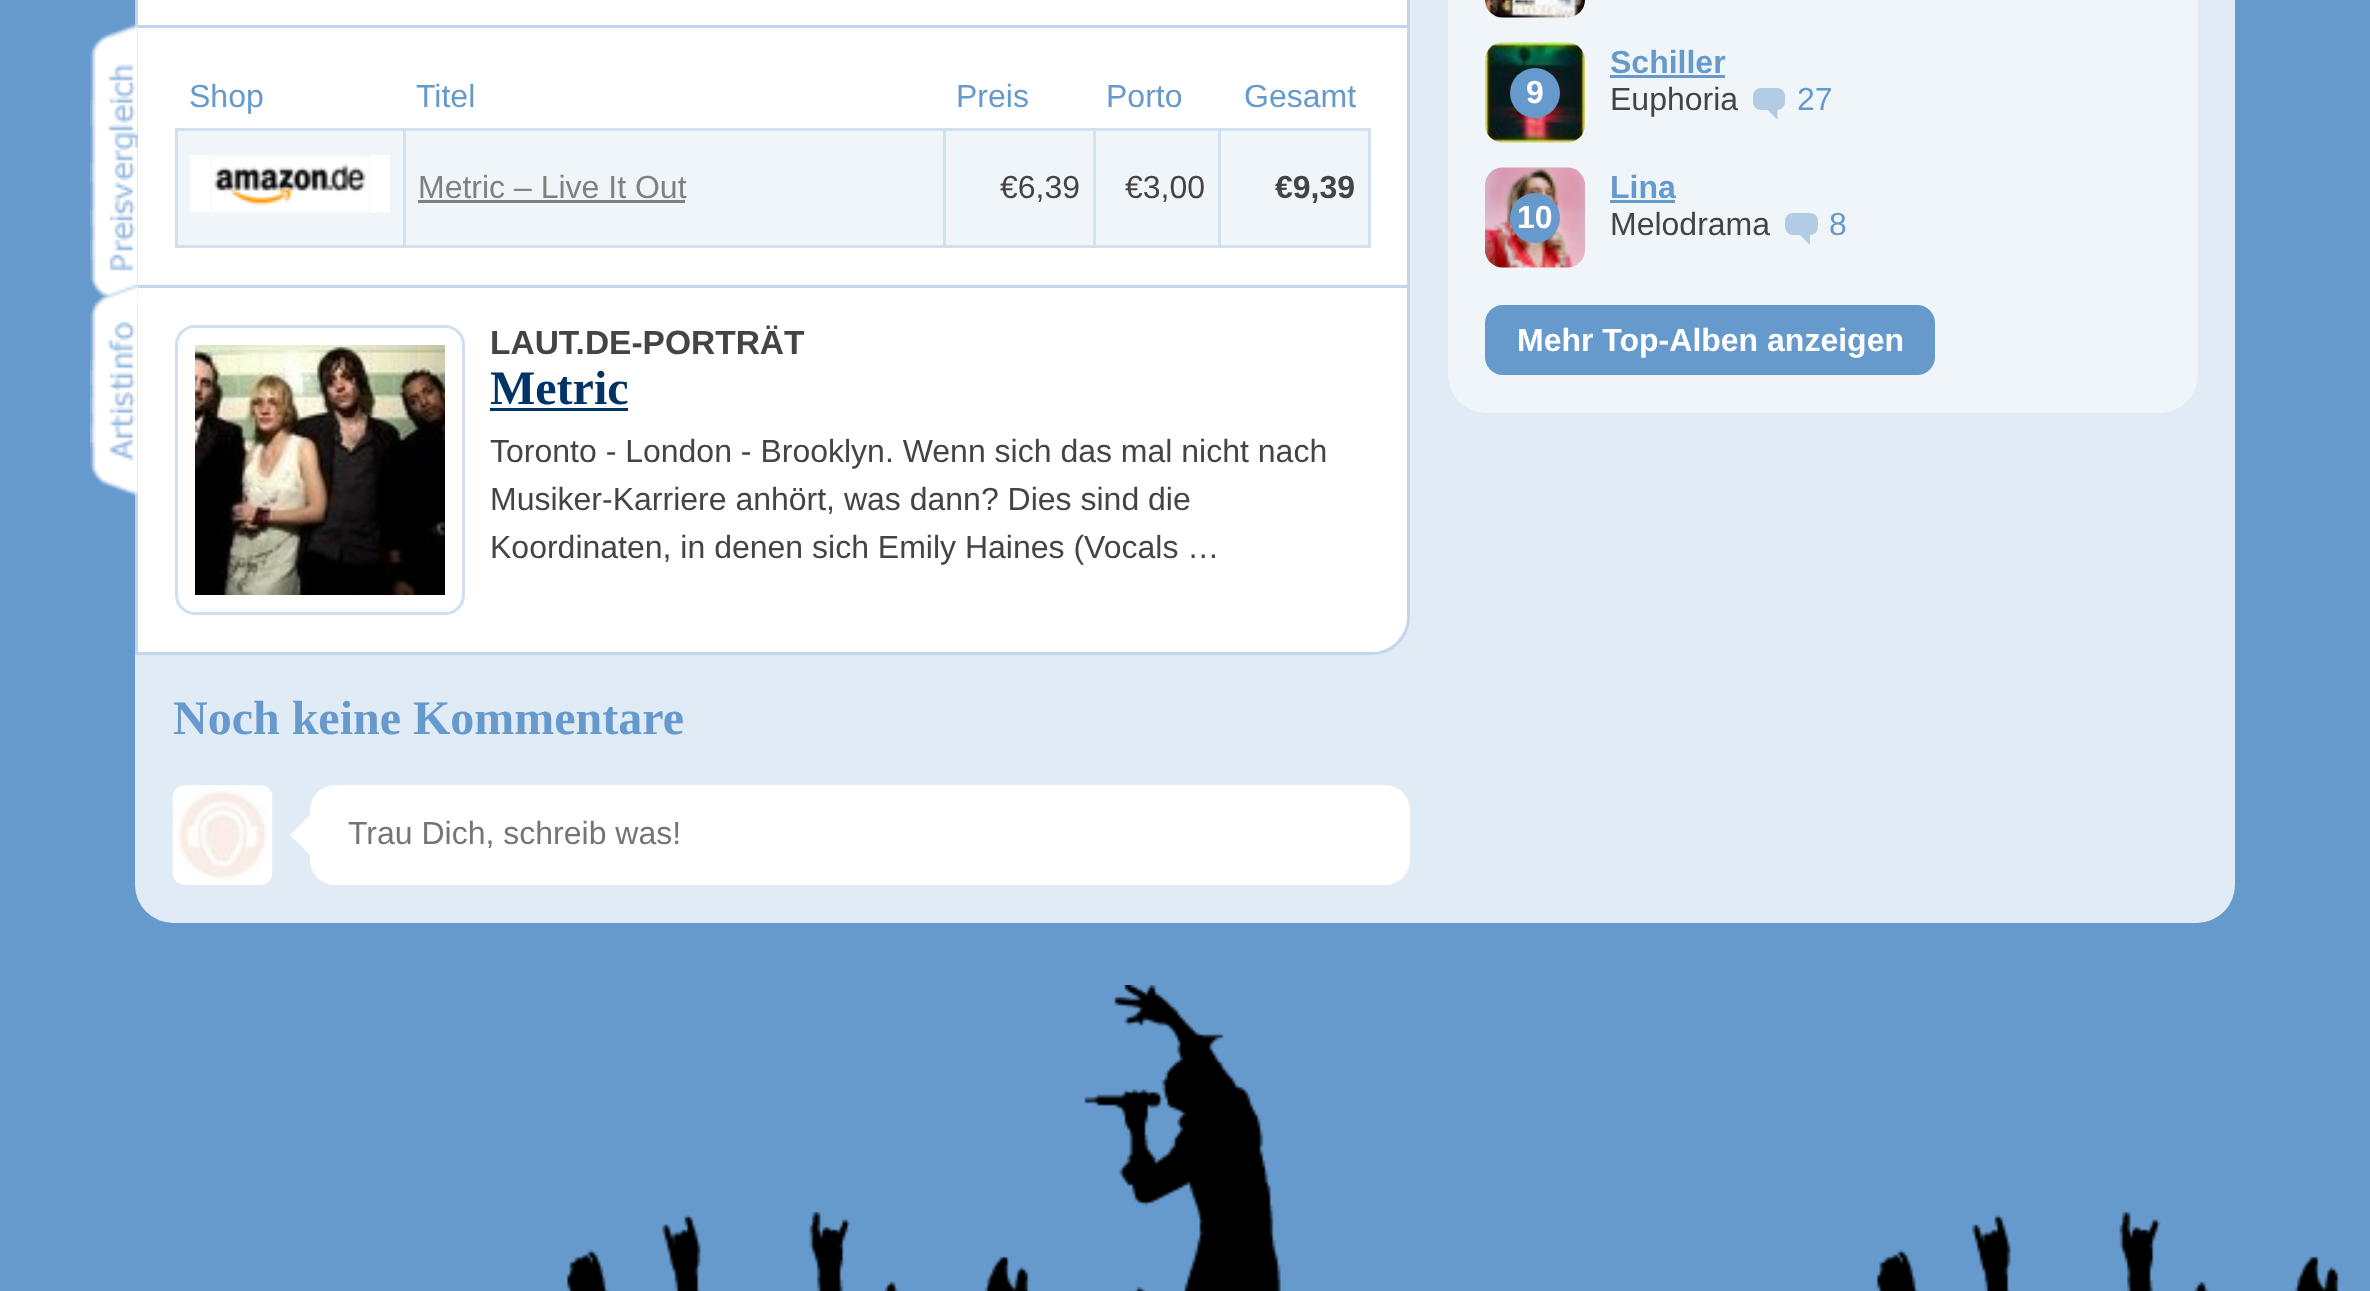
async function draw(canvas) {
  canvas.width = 2370;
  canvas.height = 1291;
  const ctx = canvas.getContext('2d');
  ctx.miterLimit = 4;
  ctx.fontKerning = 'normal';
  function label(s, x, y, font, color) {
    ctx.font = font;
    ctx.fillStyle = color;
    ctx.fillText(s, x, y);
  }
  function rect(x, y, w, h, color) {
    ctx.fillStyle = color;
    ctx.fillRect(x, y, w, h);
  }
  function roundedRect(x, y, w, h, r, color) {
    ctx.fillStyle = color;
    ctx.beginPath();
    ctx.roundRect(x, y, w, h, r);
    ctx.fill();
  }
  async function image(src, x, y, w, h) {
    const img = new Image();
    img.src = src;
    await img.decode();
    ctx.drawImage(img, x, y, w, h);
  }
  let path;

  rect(0, 0, 2370, 1291, '#69c');
  roundedRect(135, -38, 2100, 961, 38, '#e0ebf5');
  ctx.fillStyle = '#fff';
  path = new Path2D('M136.5-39.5H1372C1392-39.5 1408.5-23 1408.5-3V617C1408.5 637 1392 653.5 1372 653.5H136.5Z');
  ctx.fill(path);
  ctx.strokeStyle = '#c2d6eb';
  ctx.lineWidth = 3;
  ctx.stroke(path);
  rect(138, 25, 1270, 3, '#c2d6eb');
  await image('assets/img1.png', 90, 24, 48, 285);
  label('Shop', 189, 107, '32px Liberation Sans', '#69c');
  label('Titel', 416, 107, '32px Liberation Sans', '#69c');
  label('Preis', 956, 107, '32px Liberation Sans', '#69c');
  label('Porto', 1106, 107, '32px Liberation Sans', '#69c');
  label('Gesamt', 1244, 107, '32px Liberation Sans', '#69c');
  rect(178, 131, 225, 114, '#f0f5fa');
  rect(1218, 128, 152, 3, '#d1e1f0');
  rect(1368, 128, 3, 120, '#d1e1f0');
  rect(1218, 245, 152, 3, '#d1e1f0');
  rect(1218, 128, 3, 120, '#d1e1f0');
  rect(1093, 128, 127, 3, '#d1e1f0');
  rect(1093, 245, 127, 3, '#d1e1f0');
  rect(1093, 128, 3, 120, '#d1e1f0');
  rect(943, 128, 152, 3, '#d1e1f0');
  rect(943, 245, 152, 3, '#d1e1f0');
  rect(943, 128, 3, 120, '#d1e1f0');
  rect(403, 128, 542, 3, '#d1e1f0');
  rect(403, 245, 542, 3, '#d1e1f0');
  rect(403, 128, 3, 120, '#d1e1f0');
  rect(175, 128, 230, 3, '#d1e1f0');
  rect(175, 245, 230, 3, '#d1e1f0');
  rect(175, 128, 3, 120, '#d1e1f0');
  await image('assets/img2.png', 190, 155, 200, 58);
  rect(406, 131, 537, 114, '#f0f5fa');
  label('Metric – Live It Out', 418, 198, '32px Liberation Sans', '#808080');
  rect(418, 200, 267, 3, '#808080');
  rect(946, 131, 147, 114, '#f0f5fa');
  label('€6,39', 1000, 198, '32px Liberation Sans', '#444');
  rect(1096, 131, 122, 114, '#f0f5fa');
  label('€3,00', 1125, 198, '32px Liberation Sans', '#444');
  rect(1221, 131, 147, 114, '#f0f5fa');
  label('€9,39', 1275, 198, 'bold 32px Liberation Sans', '#444');
  rect(138, 285, 1270, 3, '#c2d6eb');
  await image('assets/img3.png', 90, 283, 48, 213);
  ctx.beginPath();
  ctx.roundRect(176.5, 326.5, 287, 287, 18.5);
  ctx.strokeStyle = '#d1e0f0';
  ctx.stroke();
  await image('assets/img4.png', 195, 345, 250, 250);
  label('LAUT.DE-PORTRÄT', 490, 354, 'bold 33.5px Liberation Sans', '#444');
  label('Metric', 490, 404, 'bold 48px Liberation Serif', '#036');
  rect(490, 408, 138, 3, '#036');
  label('Toronto - London - Brooklyn. Wenn sich das mal nicht nach', 490, 462, '32px Liberation Sans', '#444');
  label('Musiker-Karriere anhört, was dann? Dies sind die', 490, 510, '32px Liberation Sans', '#444');
  label('Koordinaten, in denen sich Emily Haines (Vocals …', 490, 558, '32px Liberation Sans', '#444');
  label('Noch keine Kommentare', 173, 734, 'bold 48px Liberation Serif', '#69c');
  await image('assets/img5.png', 172, 785, 101, 100);
  ctx.fillStyle = '#fff';
  path = new Path2D('M310 815V855L290 835Z');
  ctx.fill(path);
  roundedRect(310, 785, 1100, 100, 25, '#fff');
  label('Trau Dich, schreib was!', 348, 844, '32px Liberation Sans', '#757575');
  roundedRect(1448, -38, 750, 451, 38, '#f0f5fa');
  await image('assets/img6.png', 1485, 0, 100, 18);
  await image('assets/img7.png', 1485, 42, 100, 101);
  ctx.fillStyle = '#69c';
  ctx.beginPath();
  ctx.arc(1535, 93, 25, 0, 2 * Math.PI);
  ctx.fill();
  label('9', 1526, 103, 'bold 32px Liberation Sans', '#fff');
  label('Schiller', 1610, 73, 'bold 32px Liberation Sans', '#69c');
  rect(1610, 75, 115, 3, '#69c');
  label('Euphoria', 1610, 110, '32px Liberation Sans', '#444');
  roundedRect(1753, 88, 32, 22, 8, '#b3cce6');
  label('27', 1797, 110, '32px Liberation Sans', '#69c');
  ctx.fillStyle = '#b3cce6';
  path = new Path2D('M1777.5 110V120L1767.5 110Z');
  ctx.fill(path);
  await image('assets/img8.png', 1485, 167, 100, 101);
  ctx.fillStyle = '#69c';
  ctx.beginPath();
  ctx.arc(1535, 218, 25, 0, 2 * Math.PI);
  ctx.fill();
  label('10', 1517, 228, 'bold 32px Liberation Sans', '#fff');
  label('Lina', 1610, 198, 'bold 32px Liberation Sans', '#69c');
  rect(1610, 200, 65, 3, '#69c');
  label('Melodrama', 1610, 235, '32px Liberation Sans', '#444');
  roundedRect(1785, 213, 33, 22, 8, '#b3cce6');
  label('8', 1829, 235, '32px Liberation Sans', '#69c');
  ctx.fillStyle = '#b3cce6';
  path = new Path2D('M1810 235V245L1800 235Z');
  ctx.fill(path);
  roundedRect(1485, 305, 450, 70, 18, '#69c');
  label('Mehr Top-Alben anzeigen', 1517, 351, 'bold 32px Liberation Sans', '#fff');
  await image('assets/img9.png', 566, 985, 1773, 306);
}

draw(document.querySelector('canvas'));
